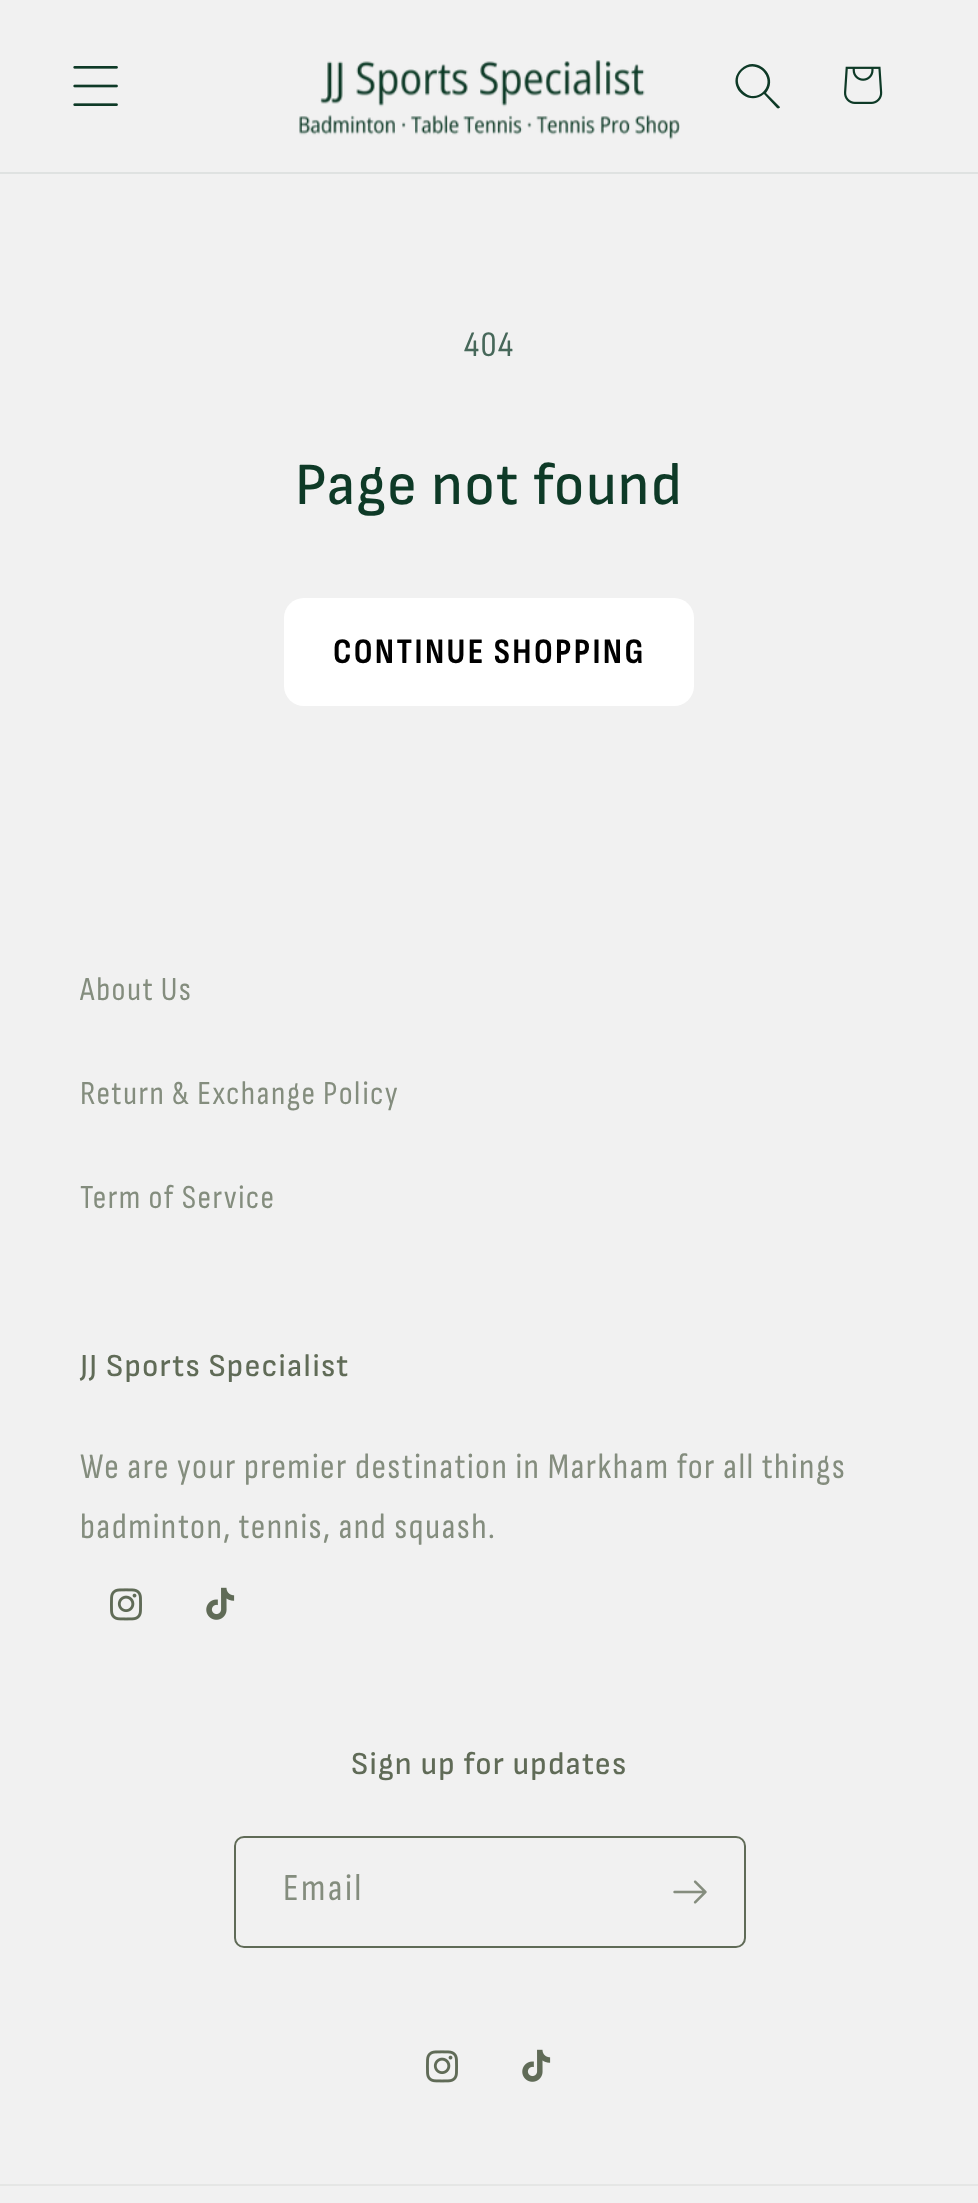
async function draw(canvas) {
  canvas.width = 978;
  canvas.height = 2203;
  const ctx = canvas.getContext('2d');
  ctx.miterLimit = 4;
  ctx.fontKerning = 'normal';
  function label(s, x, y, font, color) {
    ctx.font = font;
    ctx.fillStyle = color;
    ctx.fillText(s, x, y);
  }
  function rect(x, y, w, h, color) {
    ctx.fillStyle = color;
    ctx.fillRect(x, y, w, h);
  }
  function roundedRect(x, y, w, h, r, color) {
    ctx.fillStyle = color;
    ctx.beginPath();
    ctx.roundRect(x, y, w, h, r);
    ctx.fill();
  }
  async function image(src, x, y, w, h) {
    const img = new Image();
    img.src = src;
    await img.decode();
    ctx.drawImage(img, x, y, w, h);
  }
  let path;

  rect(0, 0, 978, 2203, '#f1f1f1');
  rect(0, 172, 978, 2, '#dfe2e1');
  await image('assets/img1.png', 73, 66, 45, 40);
  await image('assets/img2.png', 299, 60, 381, 80);
  ctx.fillStyle = '#0e3a27';
  path = new Path2D('M763 92C750 105 729 84 742 71C756 57 777 78 763 92M764 94C747 108 725 84 741 69C756 54 780 76 766 93L780 107C780 108 778 109 777 108Z');
  ctx.fill(path, 'evenodd');
  await image('assets/img3.png', 844, 66, 39, 38);
  ctx.letterSpacing = '1.45px';
  label('404', 464, 356, '36px Sofia Sans Condensed', '#47685a');
  ctx.letterSpacing = '1.2px';
  label('Page not found', 295, 504, '500 60px Sofia Sans Semi Condensed', '#0e3a27');
  roundedRect(284, 598, 410, 108, 20, '#fff');
  ctx.letterSpacing = '2.4px';
  label('CONTINUE SHOPPING', 333, 663, 'bold 36px Sofia Sans Condensed', '#000');
  ctx.letterSpacing = '1.45px';
  label('About Us', 80, 1000, '33.5px Sofia Sans Condensed', '#848d7e');
  label('Return & Exchange Policy', 80, 1104, '33.5px Sofia Sans Condensed', '#848d7e');
  label('Term of Service', 80, 1208, '33.5px Sofia Sans Condensed', '#848d7e');
  ctx.letterSpacing = '1.2px';
  label('JJ Sports Specialist', 80, 1376, '500 32px Sofia Sans Semi Condensed', '#606b57');
  ctx.letterSpacing = '1.45px';
  label('We are your premier destination in Markham for all things', 80, 1478, '36px Sofia Sans Condensed', '#848d7e');
  label('badminton, tennis, and squash.', 80, 1538, '36px Sofia Sans Condensed', '#848d7e');
  await image('assets/img4.png', 110, 1588, 32, 33);
  await image('assets/img5.png', 206, 1587, 29, 33);
  ctx.letterSpacing = '1.2px';
  label('Sign up for updates', 351, 1774, '500 32px Sofia Sans Semi Condensed', '#606b57');
  ctx.beginPath();
  ctx.roundRect(235, 1837, 510, 110, 9);
  ctx.strokeStyle = '#606b57';
  ctx.lineWidth = 2;
  ctx.stroke();
  ctx.letterSpacing = '2.4px';
  label('Email', 283, 1900, '38px Sofia Sans Condensed', '#848d7e');
  await image('assets/img6.png', 673, 1880, 34, 24);
  await image('assets/img4.png', 426, 2050, 32, 33);
  await image('assets/img5.png', 522, 2049, 29, 33);
  rect(0, 2184, 978, 2, '#e5e6e5');
}

draw(document.querySelector('canvas'));
